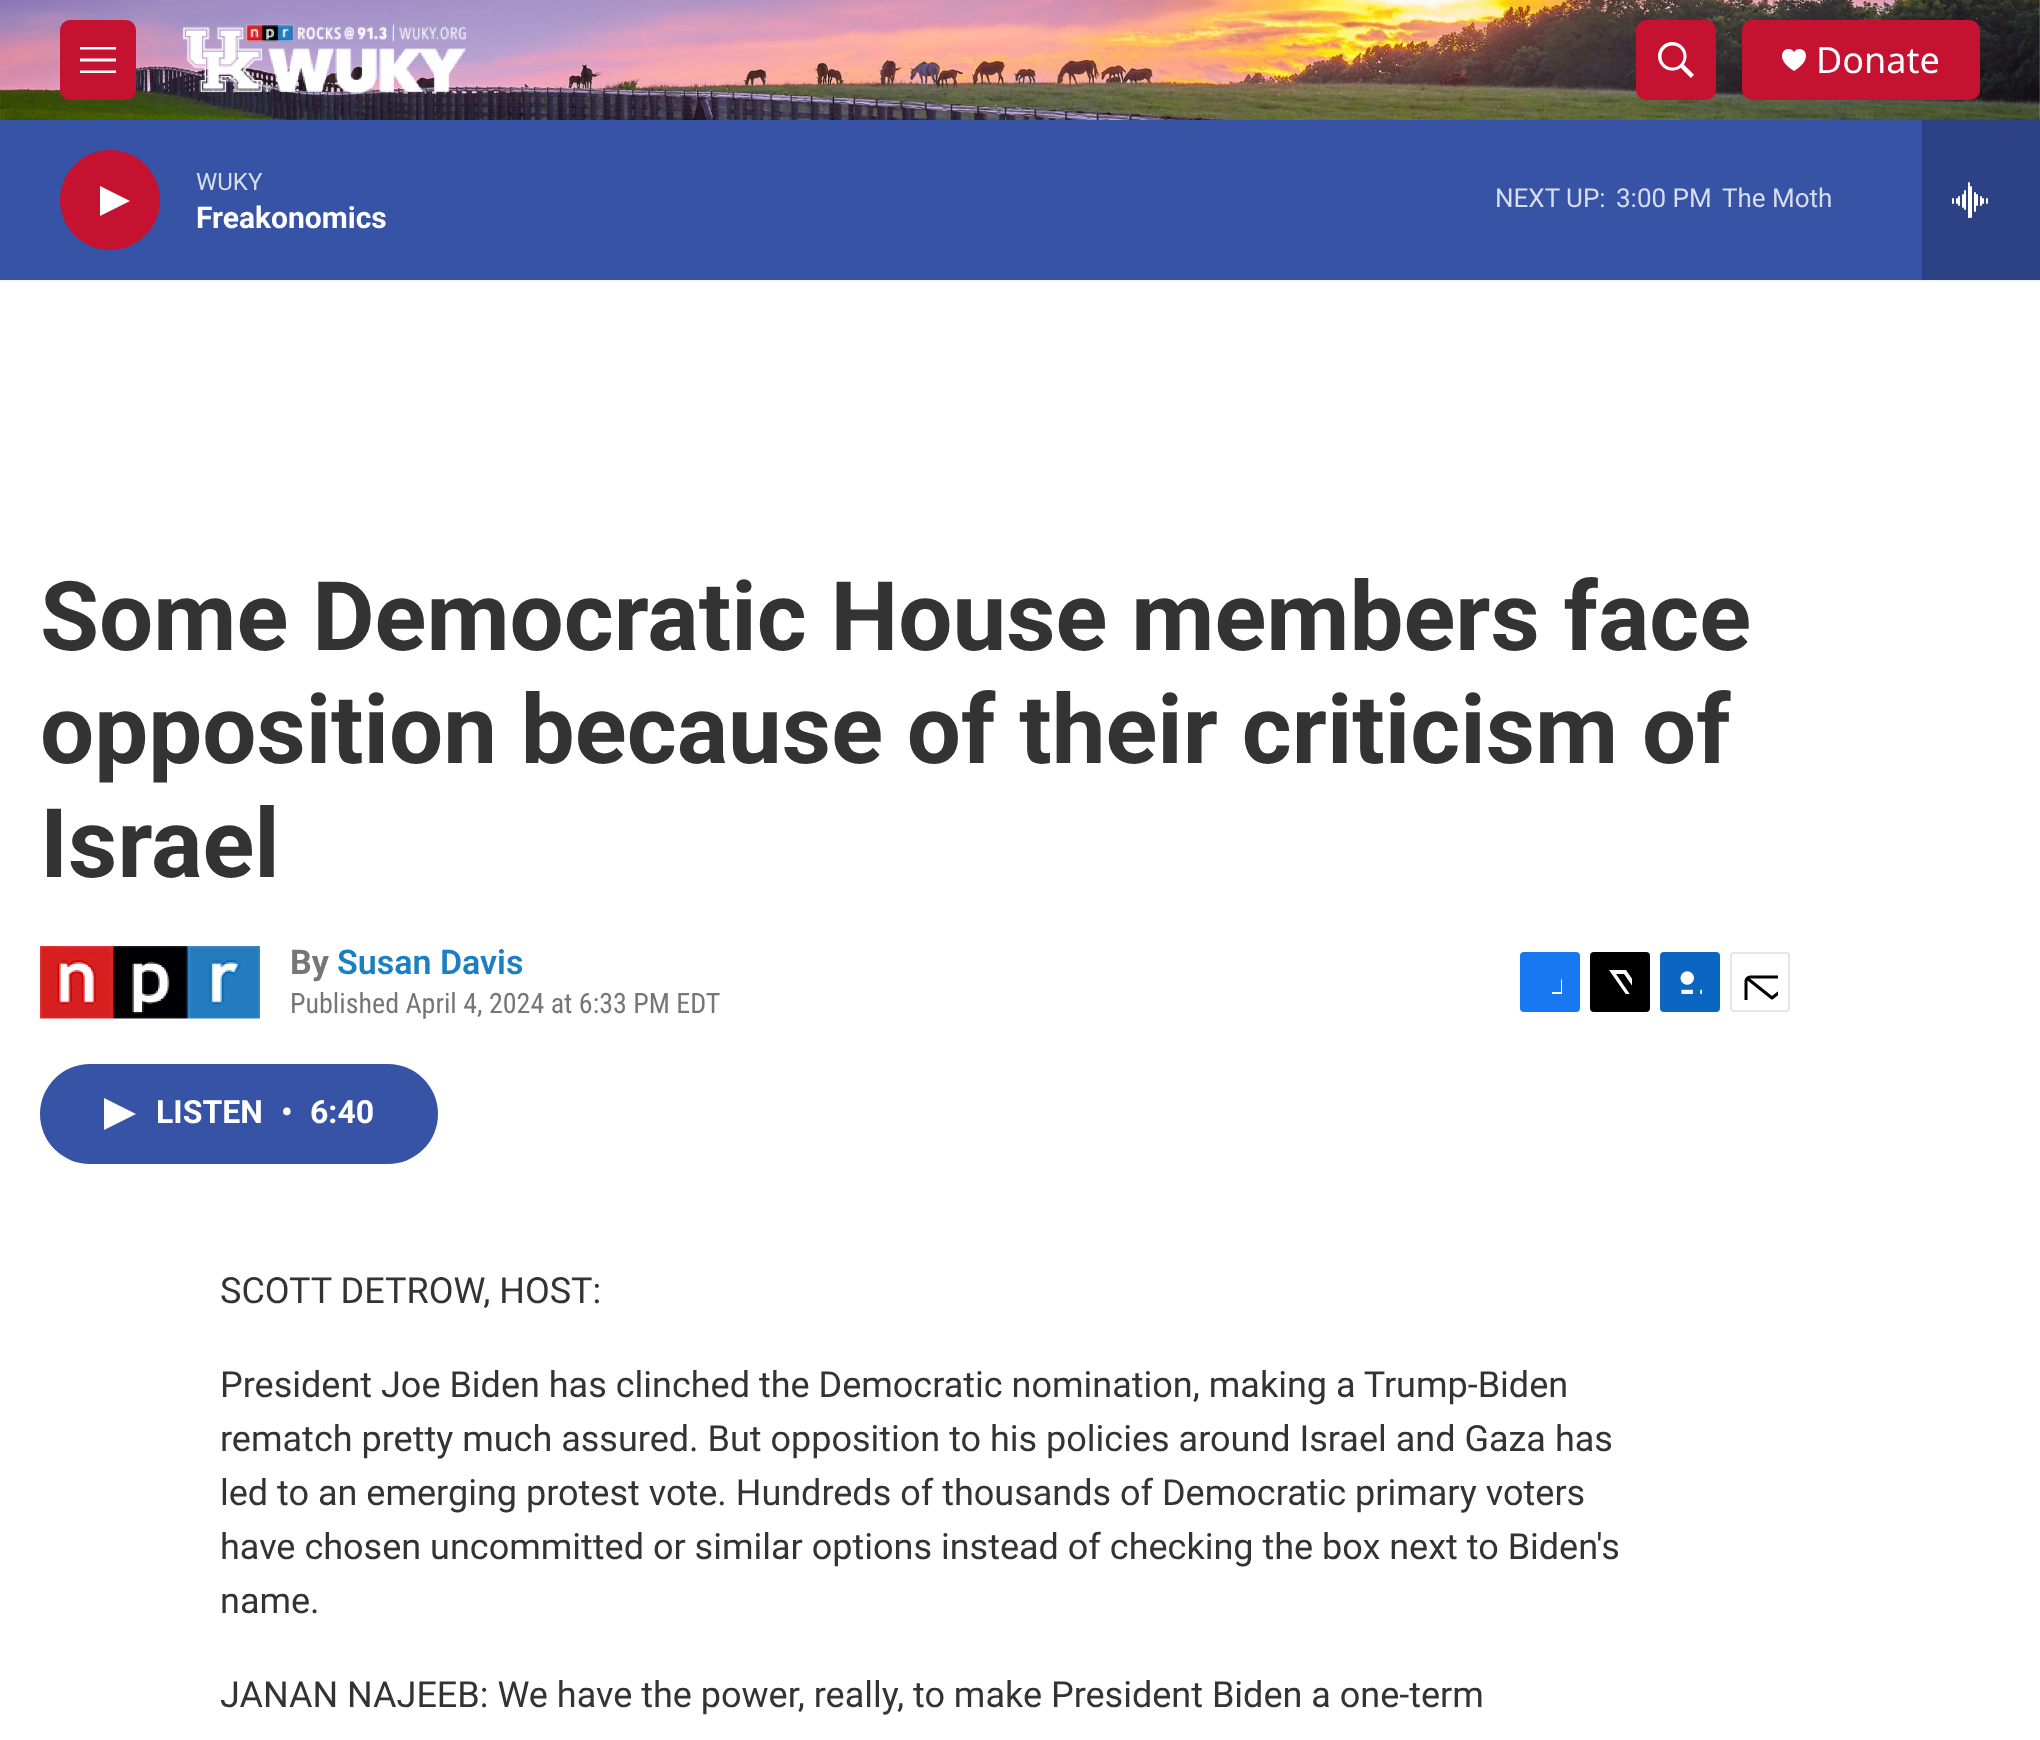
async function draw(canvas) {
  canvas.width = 2040;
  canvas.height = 1740;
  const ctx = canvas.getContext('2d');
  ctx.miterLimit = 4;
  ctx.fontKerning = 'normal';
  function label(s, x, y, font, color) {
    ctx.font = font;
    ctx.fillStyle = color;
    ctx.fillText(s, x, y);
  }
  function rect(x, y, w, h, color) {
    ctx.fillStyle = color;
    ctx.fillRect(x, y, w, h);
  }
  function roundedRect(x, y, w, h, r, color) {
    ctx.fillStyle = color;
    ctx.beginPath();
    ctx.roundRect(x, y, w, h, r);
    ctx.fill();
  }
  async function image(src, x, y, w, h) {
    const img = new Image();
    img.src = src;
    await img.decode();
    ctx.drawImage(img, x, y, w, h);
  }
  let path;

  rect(0, 0, 2040, 1740, '#fff');
  rect(0, 280, 2040, 2, '#f5f5f5');
  await image('assets/img1.png', 0, 0, 2040, 120);
  roundedRect(60, 20, 76, 80, 10, '#c41230');
  ctx.fillStyle = '#fff';
  path = new Path2D('M80 61.5V58.5H116V61.5ZM80 49.5V47H116V49.5ZM80 73V70.5H116V73Z');
  ctx.fill(path, 'evenodd');
  await image('assets/img2.png', 182, 24, 284, 70);
  roundedRect(1636, 20, 80, 80, 10, '#c41230');
  await image('assets/img3.png', 1658, 42, 36, 36);
  roundedRect(1742, 20, 238, 80, 10, '#c41230');
  await image('assets/img4.png', 1782, 49, 24, 22);
  label('Donate', 1816, 73, '36px Noto Sans', '#fff');
  rect(0, 120, 1922, 160, '#3753a5');
  ctx.fillStyle = '#c41230';
  ctx.beginPath();
  ctx.arc(110, 200, 50, 0, 2 * Math.PI);
  ctx.fill();
  ctx.fillStyle = '#fff';
  path = new Path2D('M100 186L130 201L100 216Z');
  ctx.fill(path);
  label('WUKY', 196, 190, '24px Roboto', '#d7dded');
  label('Freakonomics', 196, 228, 'bold 30px "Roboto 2"', '#fff');
  label('NEXT UP:', 1495, 207, '26px Roboto', '#d7dded');
  label('3:00 PM', 1616, 207, '26px Roboto', '#d7dded');
  label('The Moth', 1722, 207, '26px Roboto', '#d7dded');
  rect(1922, 120, 118, 160, '#2c4284');
  await image('assets/img5.png', 1952, 182, 36, 36);
  label('Some Democratic House members face', 40, 650, 'bold 96px Roboto', '#333');
  label('opposition because of their criticism of', 40, 763, 'bold 96px Roboto', '#333');
  label('Israel', 40, 877, 'bold 96px Roboto', '#333');
  await image('assets/img6.png', 40, 946, 220, 74);
  label('By', 290, 974, 'bold 34px Roboto', '#767676');
  label('Susan Davis', 337, 974, '600 34px Roboto', '#1a7fc3');
  label('Published April 4, 2024 at 6:33 PM EDT', 290, 1013, '28px Roboto Condensed', '#767676');
  roundedRect(1520, 952, 60, 60, 4, '#1778f2');
  ctx.save();
  ctx.beginPath();
  ctx.rect(1538, 970, 24, 24);
  ctx.clip();
  ctx.fillStyle = '#fff';
  path = new Path2D('M1571 1012H1561V1002H1552V992H1561V981C1563 972 1572 970 1580 971V980C1569 980 1571 983 1571 992H1580V997L1579 1002H1571Z');
  ctx.fill(path);
  ctx.restore();
  roundedRect(1590, 952, 60, 60, 4, '#000');
  ctx.save();
  ctx.beginPath();
  ctx.rect(1608, 970, 24, 24);
  ctx.clip();
  ctx.fillStyle = '#fff';
  path = new Path2D('M1644 995L1650 1004C1650 1006 1651 1009 1649 1010L1624 974H1616L1642 1012H1637L1634 1007L1630 1012H1624L1632 1003L1609 970H1626L1641 992L1650 982V988Z');
  ctx.fill(path);
  ctx.restore();
  roundedRect(1660, 952, 60, 60, 4, '#0a66c1');
  await image('assets/img7.png', 1680, 971, 22, 23);
  ctx.beginPath();
  ctx.roundRect(1731, 953, 58, 58, 3);
  ctx.strokeStyle = '#e6e6e6';
  ctx.lineWidth = 2;
  ctx.stroke();
  ctx.save();
  ctx.beginPath();
  ctx.rect(1742, 964, 36, 36);
  ctx.clip();
  path = new Path2D('M1798 1008C1798 1010 1796 1011.5 1794 1011.5H1750C1748 1011.5 1746 1010 1746 1008V981C1746 979 1748 977 1750 977H1794C1796 977 1798 979 1798 981ZM1796.5 978.5L1772 998L1747.5 978.5');
  ctx.strokeStyle = '#000';
  ctx.lineWidth = 3;
  ctx.lineCap = 'round';
  ctx.lineJoin = 'round';
  ctx.stroke(path);
  ctx.restore();
  roundedRect(40, 1064, 398, 100, 50, '#3753a5');
  ctx.fillStyle = '#fff';
  path = new Path2D('M104 1098L136 1114L104 1130Z');
  ctx.fill(path);
  label('LISTEN', 156, 1123, 'bold 32px "Roboto 2"', '#fff');
  label('•', 281, 1123, 'bold 32px "Roboto 2"', '#fff');
  label('6:40', 310, 1123, 'bold 32px "Roboto 2"', '#fff');
  label('SCOTT DETROW, HOST:', 220, 1303, '36px Roboto', '#333');
  label('President Joe Biden has clinched the Democratic nomination, making a Trump-Biden', 220, 1397, '36px Roboto', '#333');
  label('rematch pretty much assured. But opposition to his policies around Israel and Gaza has', 220, 1451, '36px Roboto', '#333');
  label('led to an emerging protest vote. Hundreds of thousands of Democratic primary voters', 220, 1505, '36px Roboto', '#333');
  label('have chosen uncommitted or similar options instead of checking the box next to Biden\'s', 220, 1559, '36px Roboto', '#333');
  label('name.', 220, 1613, '36px Roboto', '#333');
  label('JANAN NAJEEB: We have the power, really, to make President Biden a one-term', 220, 1707, '36px Roboto', '#333');
}

draw(document.querySelector('canvas'));
